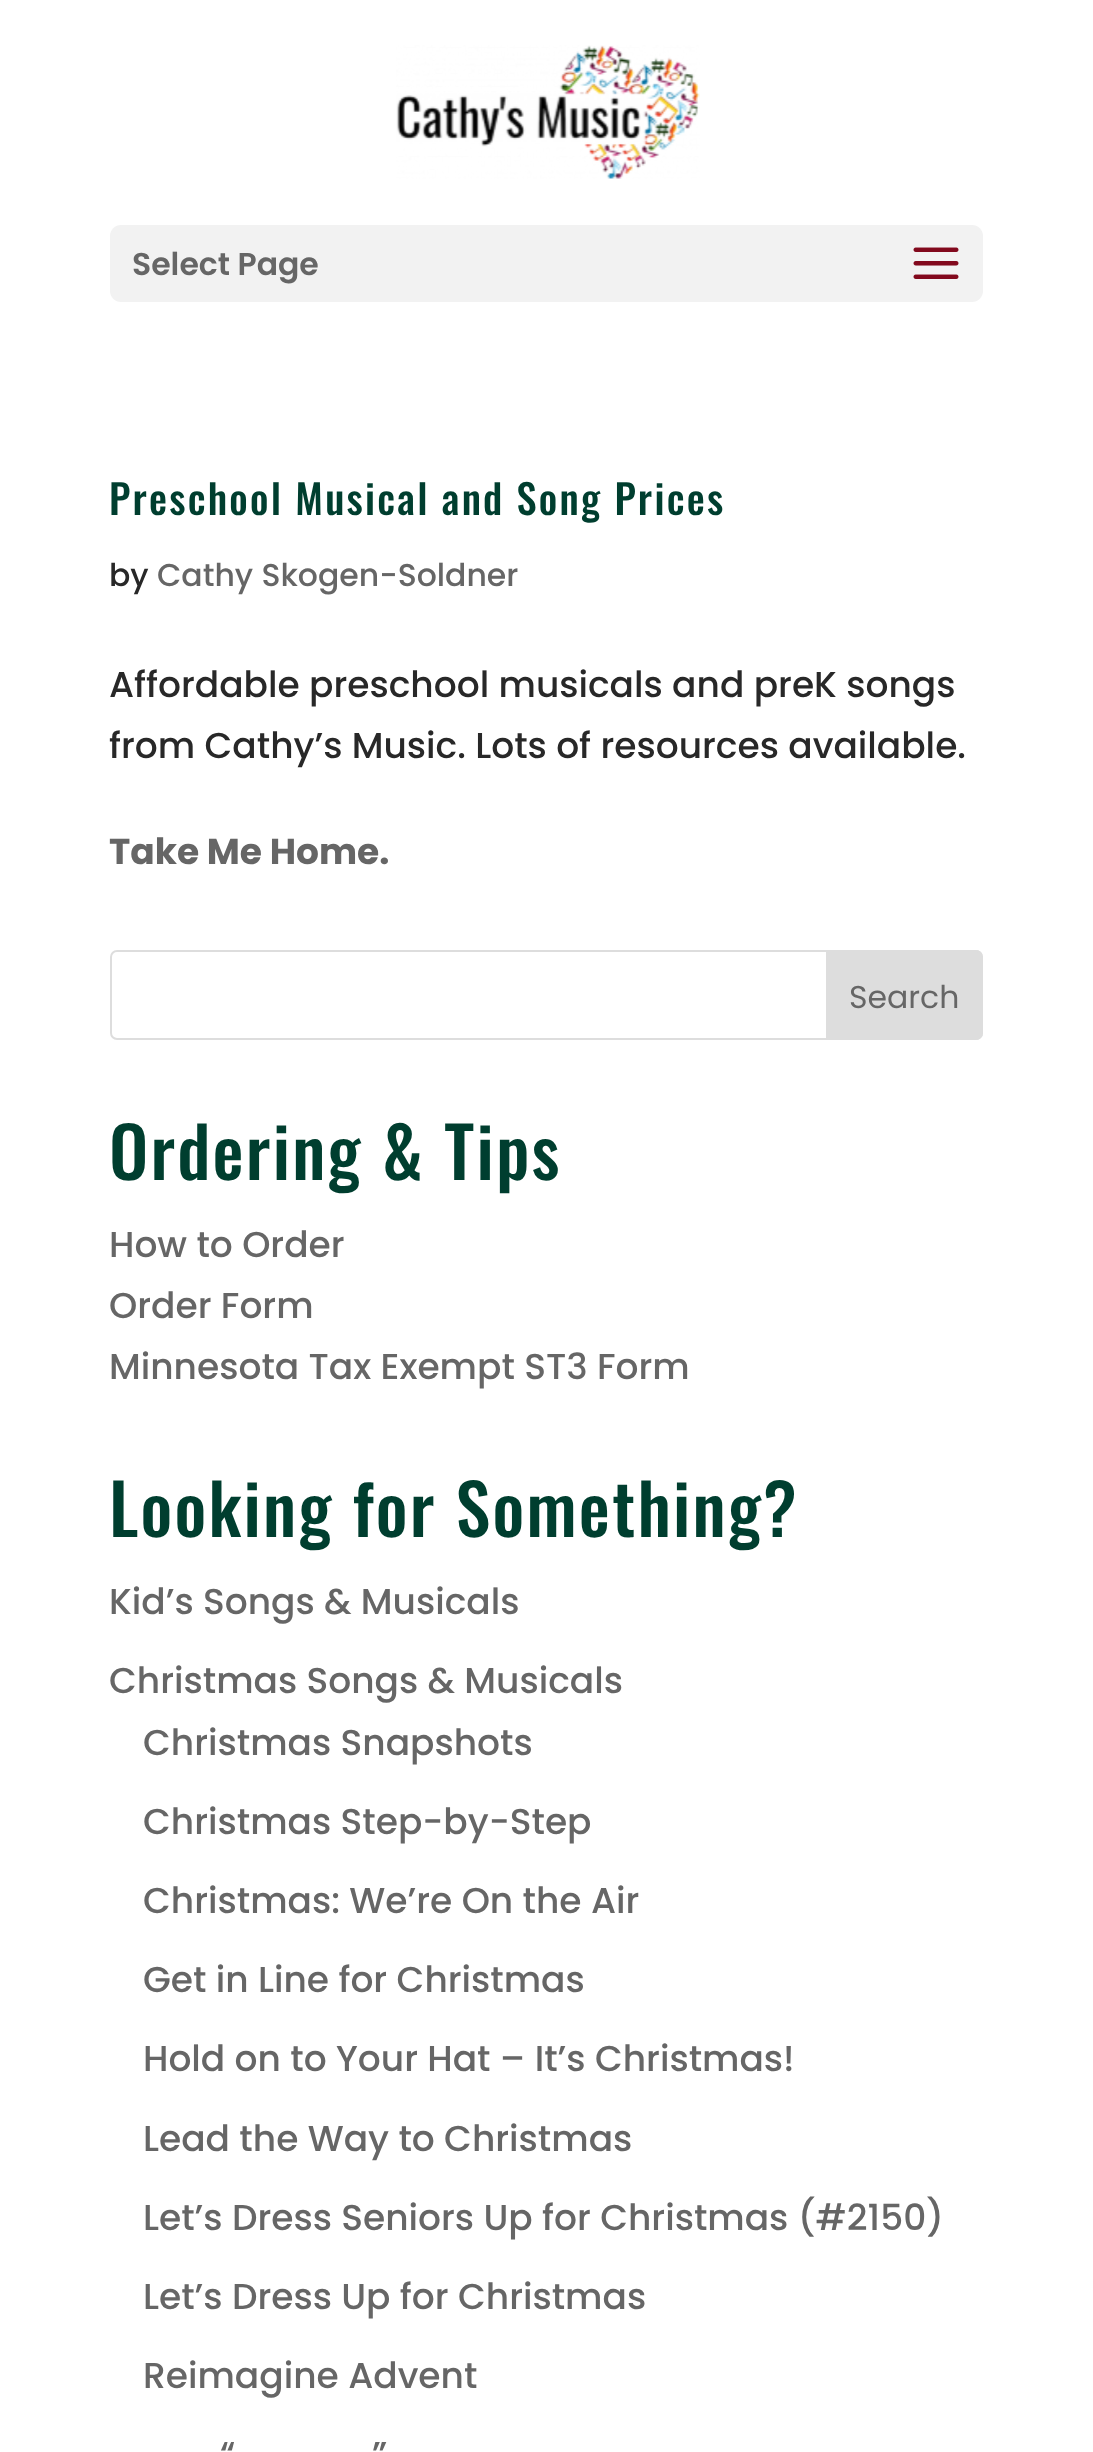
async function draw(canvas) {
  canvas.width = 1093;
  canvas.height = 2452;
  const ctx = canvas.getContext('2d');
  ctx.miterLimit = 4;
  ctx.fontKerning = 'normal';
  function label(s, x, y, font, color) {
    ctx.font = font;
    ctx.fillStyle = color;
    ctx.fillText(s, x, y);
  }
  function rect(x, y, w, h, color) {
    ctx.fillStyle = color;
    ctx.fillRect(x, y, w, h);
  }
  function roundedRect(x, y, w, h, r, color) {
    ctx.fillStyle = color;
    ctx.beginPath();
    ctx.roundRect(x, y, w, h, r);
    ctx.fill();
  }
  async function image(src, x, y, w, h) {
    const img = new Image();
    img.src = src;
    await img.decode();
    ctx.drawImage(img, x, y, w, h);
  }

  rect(0, 0, 1093, 2452, '#fff');
  await image('assets/img1.png', 396, 45, 304, 134);
  roundedRect(110, 225, 873, 77, 11, '#f2f2f2');
  label('Select Page', 132, 275, '600 31.5px Poppins', '#666');
  await image('assets/img2.png', 913, 247, 46, 32);
  ctx.letterSpacing = '2.25px';
  label('Preschool Musical and Song Prices', 109, 515, '500 40.5px Oswald', '#003e2f');
  ctx.letterSpacing = '0px';
  label('by', 109, 586, '500 31.5px Poppins', '#282828');
  label('Cathy Skogen-Soldner', 157, 586, '500 31.5px Poppins', '#666');
  label('Affordable preschool musicals and preK songs', 109, 697, '500 36px Poppins', '#282828');
  label('from Cathy’s Music. Lots of resources available.', 109, 758, '500 36px Poppins', '#282828');
  label('Take Me Home.', 109, 864, 'bold 36px Poppins', '#666');
  ctx.beginPath();
  ctx.roundRect(111, 951, 871, 88, 6);
  ctx.strokeStyle = '#ddd';
  ctx.lineWidth = 2;
  ctx.stroke();
  ctx.fillStyle = '#ddd';
  ctx.beginPath();
  ctx.roundRect(827, 951, 155, 88, [0, 6, 6, 0]);
  ctx.fill();
  ctx.stroke();
  label('Search', 849, 1008, '31.5px Poppins', '#666');
  ctx.letterSpacing = '2.25px';
  label('Ordering & Tips', 109, 1180, '500 69.75px Oswald', '#003e2f');
  ctx.letterSpacing = '0px';
  label('How to Order', 109, 1257, '500 36px Poppins', '#666');
  label('Order Form', 109, 1318, '500 36px Poppins', '#666');
  label('Minnesota Tax Exempt ST3 Form', 109, 1379, '500 36px Poppins', '#666');
  ctx.letterSpacing = '2.25px';
  label('Looking for Something?', 109, 1537, '500 69.75px Oswald', '#003e2f');
  ctx.letterSpacing = '0px';
  label('Kid’s Songs & Musicals', 109, 1614, '500 36px Poppins', '#666');
  label('Christmas Songs & Musicals', 109, 1693, '500 36px Poppins', '#666');
  label('Christmas Snapshots', 143, 1755, '500 36px Poppins', '#666');
  label('Christmas Step-by-Step', 143, 1834, '500 36px Poppins', '#666');
  label('Christmas: We’re On the Air', 143, 1913, '500 36px Poppins', '#666');
  label('Get in Line for Christmas', 143, 1992, '500 36px Poppins', '#666');
  label('Hold on to Your Hat – It’s Christmas!', 143, 2071, '500 36px Poppins', '#666');
  label('Lead the Way to Christmas', 143, 2151, '500 36px Poppins', '#666');
  label('Let’s Dress Seniors Up for Christmas (#2150)', 143, 2230, '500 36px Poppins', '#666');
  label('Let’s Dress Up for Christmas', 143, 2309, '500 36px Poppins', '#666');
  label('Reimagine Advent', 143, 2388, '500 36px Poppins', '#666');
  label('“', 220, 2467, '500 36px Poppins', '#666');
  label('”', 372, 2467, '500 36px Poppins', '#666');
}

draw(document.querySelector('canvas'));
